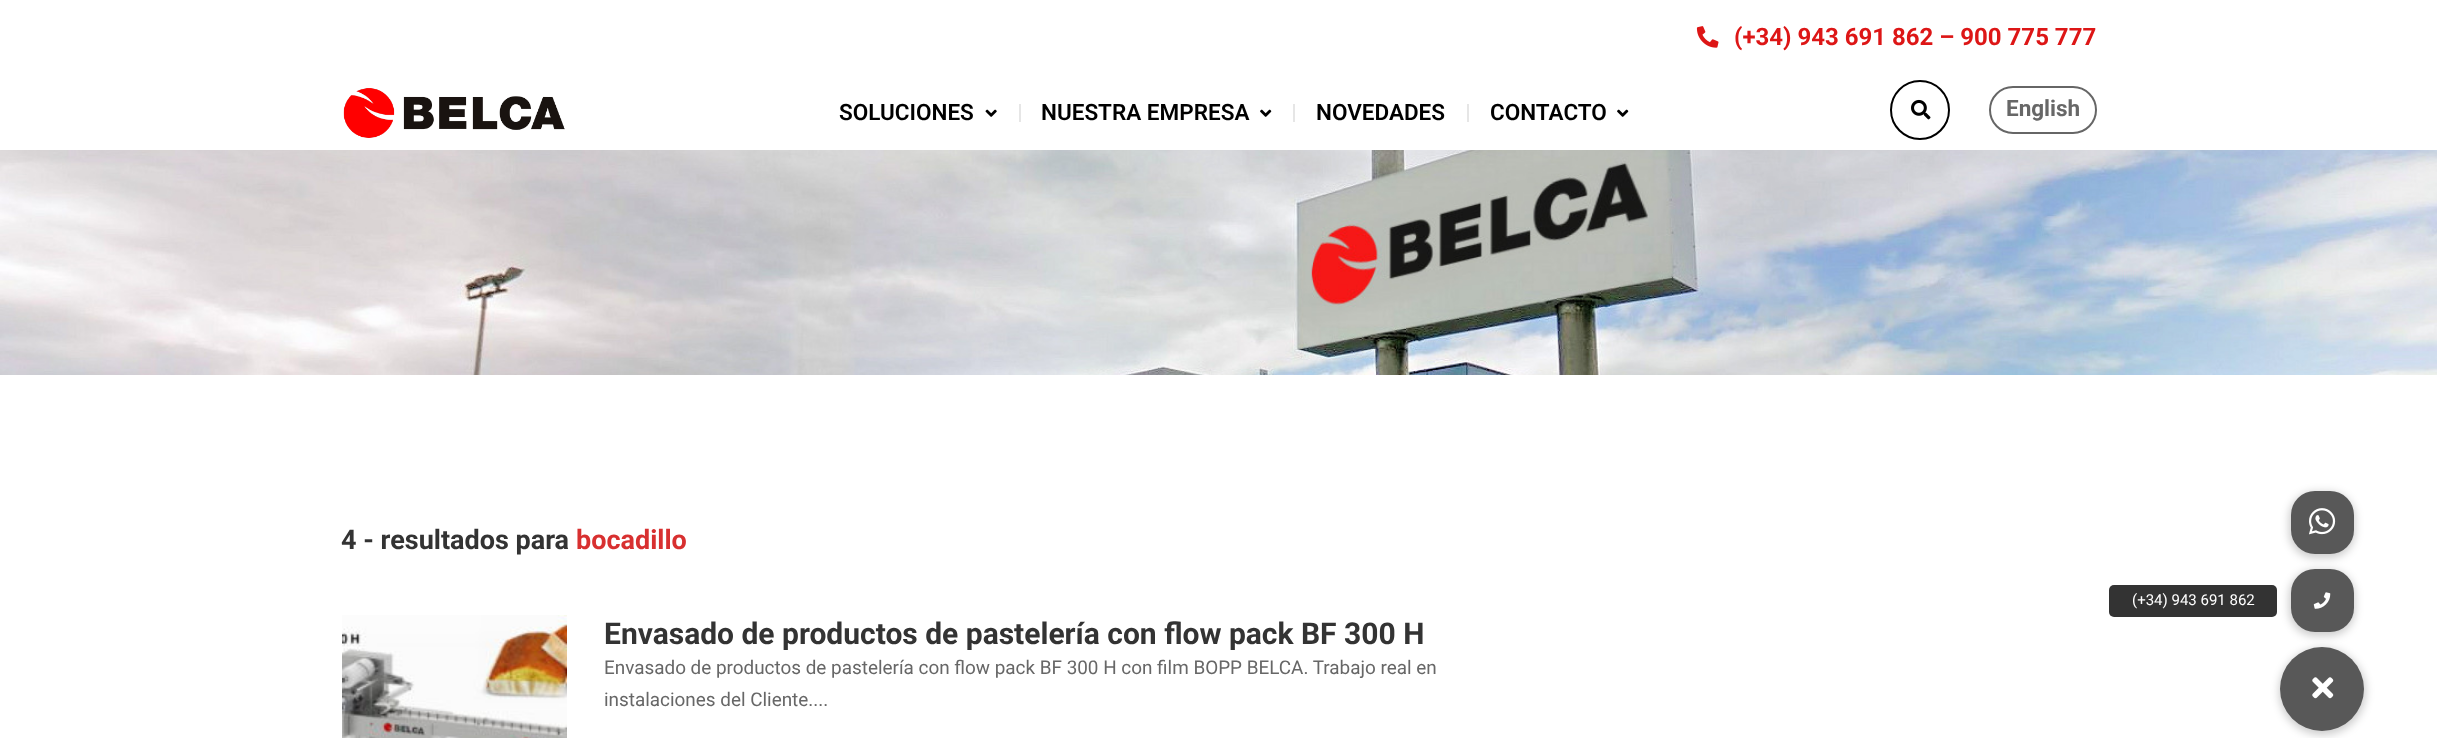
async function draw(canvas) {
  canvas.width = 2437;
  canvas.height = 738;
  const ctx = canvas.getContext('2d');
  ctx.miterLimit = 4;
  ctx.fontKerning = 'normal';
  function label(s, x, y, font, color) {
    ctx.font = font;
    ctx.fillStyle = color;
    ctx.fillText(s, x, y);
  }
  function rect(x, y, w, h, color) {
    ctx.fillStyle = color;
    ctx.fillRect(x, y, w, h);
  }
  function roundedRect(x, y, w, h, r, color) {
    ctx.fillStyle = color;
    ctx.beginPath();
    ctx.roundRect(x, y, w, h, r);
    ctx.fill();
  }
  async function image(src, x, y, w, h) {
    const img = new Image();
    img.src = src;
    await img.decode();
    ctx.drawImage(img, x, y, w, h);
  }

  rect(0, 0, 2437, 738, '#fff');
  await image('assets/img1.png', 1696, 26, 23, 22);
  label('(+34) 943 691 862 – 900 775 777', 1734, 45, 'bold 24px Roboto', '#dd1616');
  await image('assets/img2.png', 343, 88, 222, 50);
  label('SOLUCIONES', 839, 120, '600 22.5px Roboto', '#000');
  await image('assets/img3.png', 985, 109, 12, 8);
  rect(1019, 104, 2, 18, '#e6e6e6');
  label('NUESTRA EMPRESA', 1041, 120, '600 22.5px Roboto', '#000');
  await image('assets/img4.png', 1260, 109, 12, 8);
  rect(1293, 104, 2, 18, '#e6e6e6');
  label('NOVEDADES', 1316, 120, '600 22.5px Roboto', '#000');
  rect(1467, 104, 2, 18, '#e6e6e6');
  label('CONTACTO', 1490, 120, '600 22.5px Roboto', '#000');
  await image('assets/img4.png', 1617, 109, 12, 8);
  ctx.beginPath();
  ctx.arc(1920, 110, 29, 0, 2 * Math.PI);
  ctx.strokeStyle = '#000';
  ctx.lineWidth = 2;
  ctx.stroke();
  await image('assets/img5.png', 1911, 99, 20, 21);
  ctx.beginPath();
  ctx.roundRect(1990, 87, 106, 46, 23);
  ctx.strokeStyle = '#666';
  ctx.stroke();
  label('English', 2006, 116, 'bold 22.5px Roboto', '#676767');
  await image('assets/img6.png', 0, 150, 2437, 225);
  label('4 - resultados para', 341, 549, 'bold 27px Roboto', '#333');
  label('bocadillo', 576, 549, 'bold 27px Roboto', '#d83030');
  await image('assets/img7.png', 342, 615, 225, 123);
  label('Envasado de productos de pastelería con flow pack BF 300 H', 604, 644, 'bold 30px Roboto', '#333');
  label('Envasado de productos de pastelería con flow pack BF 300 H con film BOPP BELCA. Trabajo real en', 604, 674, '18.9px Roboto', '#676767');
  label('instalaciones del Cliente....', 604, 706, '18.9px Roboto', '#676767');
  ctx.fillStyle = '#00000033';
  ctx.filter = 'blur(4.5px)';
  ctx.beginPath();
  ctx.roundRect(2289, 570, 66, 66, 26);
  ctx.fill();
  ctx.filter = 'none';
  roundedRect(2291, 569, 63, 63, 24, '#585858');
  ctx.fillStyle = '#00000033';
  ctx.filter = 'blur(4.5px)';
  ctx.beginPath();
  ctx.roundRect(2289, 492, 66, 66, 26);
  ctx.fill();
  ctx.filter = 'none';
  roundedRect(2291, 491, 63, 63, 24, '#585858');
  await image('assets/img8.png', 2309, 508, 27, 27);
  roundedRect(2109, 585, 168, 32, 5, '#333');
  label('(+34) 943 691 862', 2132, 605, '15px Roboto', '#fff');
  await image('assets/img9.png', 2313, 592, 18, 17);
  ctx.fillStyle = '#00000033';
  ctx.filter = 'blur(4.5px)';
  ctx.beginPath();
  ctx.roundRect(2279, 648, 87, 87, 43.5);
  ctx.fill();
  ctx.filter = 'none';
  ctx.fillStyle = '#585858';
  ctx.beginPath();
  ctx.arc(2322, 689, 42, 0, 2 * Math.PI);
  ctx.fill();
  await image('assets/img10.png', 2312, 677, 22, 22);
}

draw(document.querySelector('canvas'));
